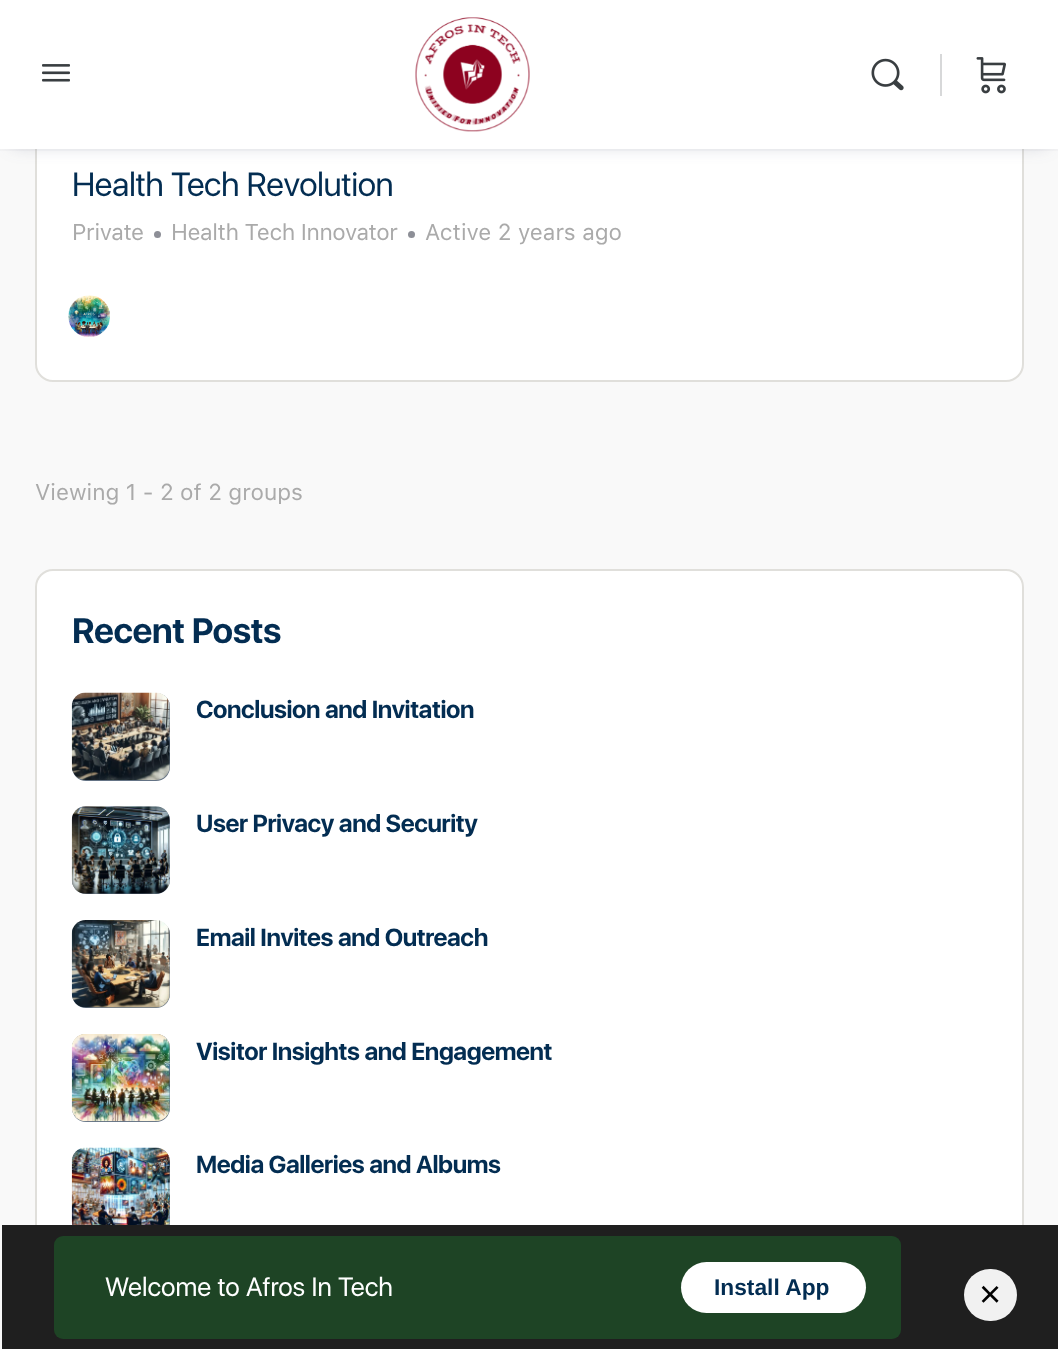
async function draw(canvas) {
  canvas.width = 1058;
  canvas.height = 1349;
  const ctx = canvas.getContext('2d');
  ctx.miterLimit = 4;
  ctx.fontKerning = 'normal';
  function label(s, x, y, font, color) {
    ctx.font = font;
    ctx.fillStyle = color;
    ctx.fillText(s, x, y);
  }
  function rect(x, y, w, h, color) {
    ctx.fillStyle = color;
    ctx.fillRect(x, y, w, h);
  }
  function roundedRect(x, y, w, h, r, color) {
    ctx.fillStyle = color;
    ctx.beginPath();
    ctx.roundRect(x, y, w, h, r);
    ctx.fill();
  }
  async function image(src, x, y, w, h) {
    const img = new Image();
    img.src = src;
    await img.decode();
    ctx.drawImage(img, x, y, w, h);
  }
  let path;

  rect(0, 0, 1058, 1349, '#f9f9f9');
  ctx.fillStyle = '#fff';
  ctx.beginPath();
  ctx.roundRect(36, -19, 987, 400, 17);
  ctx.fill();
  ctx.strokeStyle = '#e0dfdb';
  ctx.lineWidth = 2;
  ctx.stroke();
  ctx.fillStyle = '#41476c40';
  ctx.filter = 'blur(9px)';
  ctx.beginPath();
  ctx.rect(12, 21, 1035, 124);
  ctx.fill();
  ctx.filter = 'none';
  ctx.fillStyle = '#8b8d9d0d';
  path = new Path2D('M0 149V151H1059V2V149Z');
  ctx.fill(path);
  rect(0, 0, 1058, 149, '#fff');
  await image('assets/img1.png', 42, 64, 28, 18);
  await image('assets/img2.png', 415, 17, 115, 115);
  await image('assets/img3.png', 871, 58, 33, 33);
  rect(940, 54, 2, 42, '#d7d8d9');
  await image('assets/img4.png', 976, 57, 30, 37);
  ctx.letterSpacing = '-0.4px';
  label('Health Tech Revolution', 72, 196, '33.25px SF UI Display', '#032d52');
  label('Private', 72, 240, '22.75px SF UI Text', '#aaa');
  ctx.fillStyle = '#8d8f97';
  ctx.beginPath();
  ctx.arc(157.5, 234.5, 3.5, 0, 2 * Math.PI);
  ctx.fill();
  label('Health Tech Innovator', 171, 240, '22.75px SF UI Text', '#aaa');
  ctx.fillStyle = '#8d8f97';
  ctx.beginPath();
  ctx.arc(411.5, 234.5, 3.5, 0, 2 * Math.PI);
  ctx.fill();
  ctx.letterSpacing = '0px';
  label('Active 2 years ago', 425, 240, '22.75px SF UI Text', '#aaa');
  await image('assets/img5.png', 68, 295, 42, 42);
  label('Viewing 1 - 2 of 2 groups', 35, 500, '22.75px SF UI Text', '#aaa');
  ctx.fillStyle = '#fff';
  ctx.beginPath();
  ctx.roundRect(36, 570, 987, 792, 17);
  ctx.fill();
  ctx.stroke();
  ctx.letterSpacing = '-0.4px';
  label('Recent Posts', 72, 643, 'bold 35px SF UI Display', '#032d52');
  roundedRect(72, 693, 98, 88, 14, '#647385');
  await image('assets/img6.png', 71, 692, 99, 88);
  label('Conclusion and Invitation', 196, 718, 'bold 24.5px SF UI Display', '#032d52');
  roundedRect(72, 807, 98, 87, 14, '#647385');
  await image('assets/img7.png', 71, 806, 99, 88);
  label('User Privacy and Security', 196, 832, 'bold 24.5px SF UI Display', '#032d52');
  roundedRect(72, 921, 98, 87, 14, '#647385');
  await image('assets/img8.png', 71, 920, 99, 88);
  label('Email Invites and Outreach', 196, 946, 'bold 24.5px SF UI Display', '#032d52');
  roundedRect(72, 1034, 98, 88, 14, '#647385');
  await image('assets/img9.png', 71, 1034, 99, 88);
  label('Visitor Insights and Engagement', 196, 1060, 'bold 24.5px SF UI Display', '#032d52');
  roundedRect(72, 1148, 98, 88, 14, '#647385');
  await image('assets/img10.png', 71, 1147, 99, 78);
  label('Media Galleries and Albums', 196, 1173, 'bold 24.5px SF UI Display', '#032d52');
  rect(2, 1225, 1056, 124, '#1f1f1f');
  roundedRect(54, 1236, 847, 103, 9, '#1e4425');
  ctx.letterSpacing = '0px';
  label('Welcome to Afros In Tech', 105, 1296, '26.25px SF UI Display', '#fff');
  roundedRect(681, 1262, 185, 51, 25.5, '#fff');
  label('Install App', 714, 1295, 'bold 22.75px Liberation Sans', '#032d52');
  roundedRect(964, 1269, 53, 52, 26, '#f1f1f1');
  label('×', 979, 1307, '38px Liberation Sans', '#000');
}

draw(document.querySelector('canvas'));
